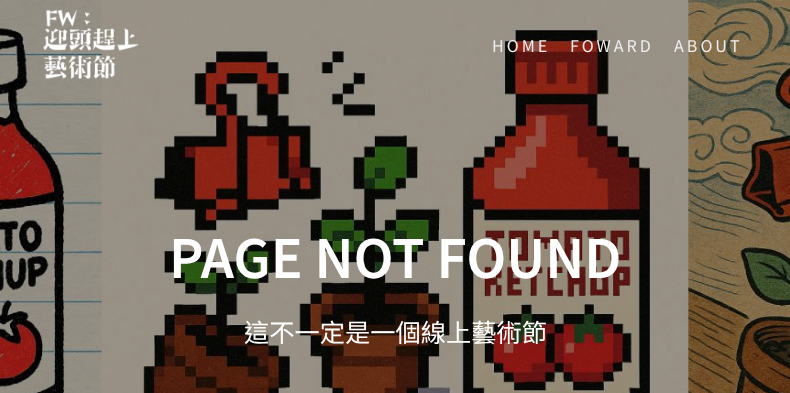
async function draw(canvas) {
  canvas.width = 790;
  canvas.height = 393;
  const ctx = canvas.getContext('2d');
  ctx.miterLimit = 4;
  ctx.fontKerning = 'normal';
  function label(s, x, y, font, color) {
    ctx.font = font;
    ctx.fillStyle = color;
    ctx.fillText(s, x, y);
  }
  function rect(x, y, w, h, color) {
    ctx.fillStyle = color;
    ctx.fillRect(x, y, w, h);
  }
  async function image(src, x, y, w, h) {
    const img = new Image();
    img.src = src;
    await img.decode();
    ctx.drawImage(img, x, y, w, h);
  }

  rect(0, 0, 790, 393, '#fff');
  await image('assets/img2.png', 0, 0, 790, 393);
  await image('assets/img1.png', 43, 9, 96, 70);
  ctx.letterSpacing = '3px';
  label('HOME', 492, 52, '18px Source Sans Pro', '#ededed');
  label('FOWARD', 570, 52, '18px Source Sans Pro', '#ededed');
  label('ABOUT', 674, 52, '18px Source Sans Pro', '#ededed');
  ctx.letterSpacing = '0px';
  label('PAGE NOT FOUND', 169, 278, '600 59.5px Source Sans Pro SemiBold', '#fff');
  label('這不一定是一個線上藝術節', 244, 342, '25.25px Noto Sans CJK TC', '#fff');
}

draw(document.querySelector('canvas'));
